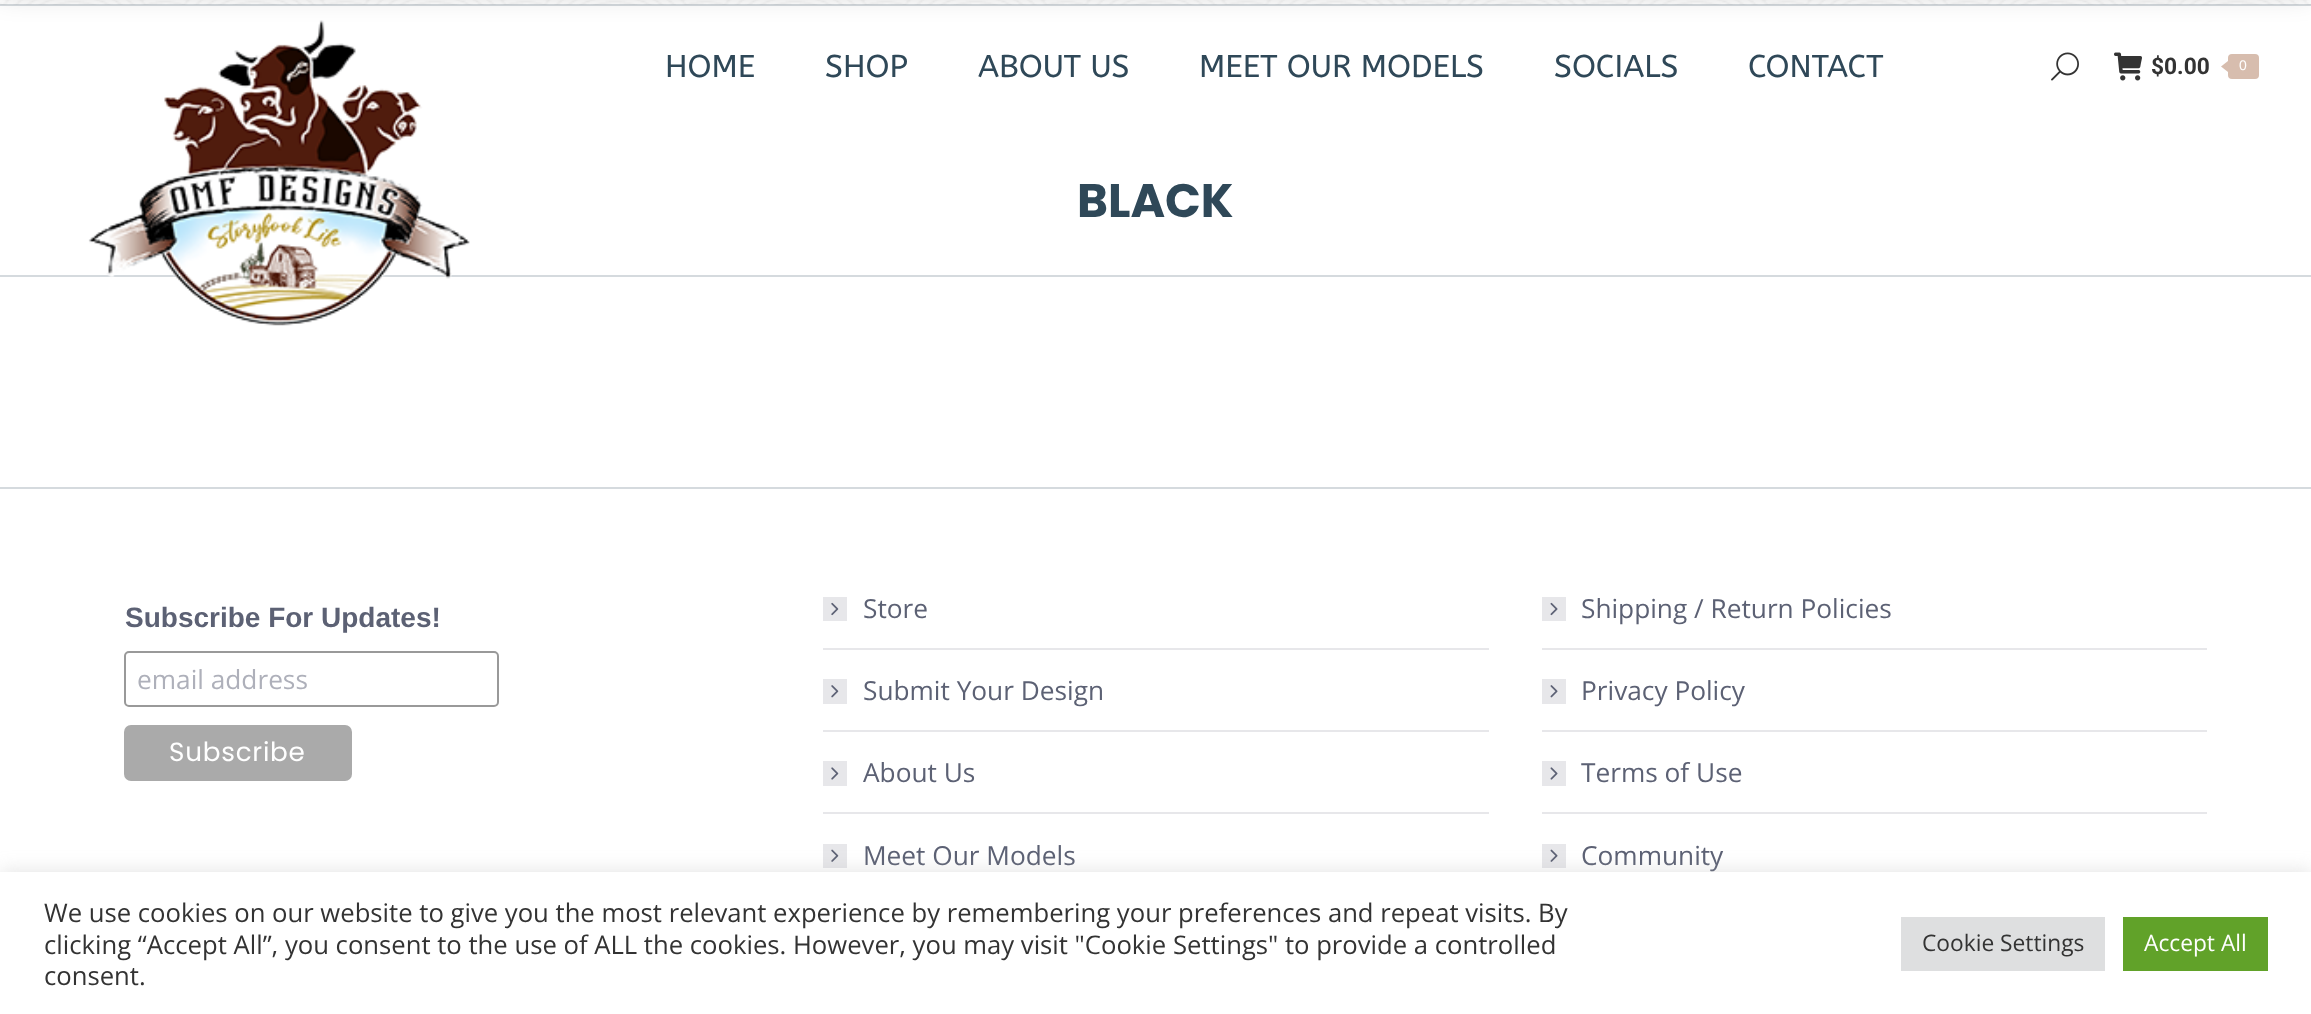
async function draw(canvas) {
  canvas.width = 2311;
  canvas.height = 1014;
  const ctx = canvas.getContext('2d');
  ctx.miterLimit = 4;
  ctx.fontKerning = 'normal';
  function label(s, x, y, font, color) {
    ctx.font = font;
    ctx.fillStyle = color;
    ctx.fillText(s, x, y);
  }
  function rect(x, y, w, h, color) {
    ctx.fillStyle = color;
    ctx.fillRect(x, y, w, h);
  }
  function roundedRect(x, y, w, h, r, color) {
    ctx.fillStyle = color;
    ctx.beginPath();
    ctx.roundRect(x, y, w, h, r);
    ctx.fill();
  }
  async function image(src, x, y, w, h) {
    const img = new Image();
    img.src = src;
    await img.decode();
    ctx.drawImage(img, x, y, w, h);
  }
  let path;

  rect(0, 0, 2311, 1014, '#fff');
  await image('assets/img1.png', 0, 0, 2311, 5);
  rect(0, 4, 2311, 2, '#2f485833');
  rect(0, 275, 2311, 2, '#d5dade');
  await image('assets/img2.png', 88, 20, 382, 306);
  ctx.fillStyle = '#00000033';
  ctx.filter = 'blur(14px)';
  ctx.beginPath();
  ctx.rect(0, -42, 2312, 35);
  ctx.fill();
  ctx.filter = 'none';
  label('HOME', 665, 77, '31.5px ABeeZee', '#2f4858');
  label('SHOP', 825, 77, '31.5px ABeeZee', '#2f4858');
  label('ABOUT US', 978, 77, '31.5px ABeeZee', '#2f4858');
  label('MEET OUR MODELS', 1199, 77, '31.5px ABeeZee', '#2f4858');
  label('SOCIALS', 1554, 77, '31.5px ABeeZee', '#2f4858');
  label('CONTACT', 1748, 77, '31.5px ABeeZee', '#2f4858');
  await image('assets/img3.png', 2051, 52, 28, 29);
  await image('assets/img4.png', 2114, 52, 28, 29);
  label('$0.00', 2151, 74, 'bold 22.75px Roboto', '#333');
  roundedRect(2228, 54, 31, 25, 4, '#d7bdae');
  path = new Path2D('M2228 61V72L2221 66.5Z');
  ctx.fill(path);
  label('0', 2239, 70, '14px Liberation Sans', '#fff');
  label('BLACK', 1077, 217, 'bold 47px Poppins', '#2f4858');
  rect(0, 487, 2311, 2, '#d5dade');
  label('Subscribe For Updates!', 125, 627, 'bold 28px Liberation Sans', '#5c6174');
  ctx.beginPath();
  ctx.roundRect(125, 652, 373, 54, 4);
  ctx.strokeStyle = '#999';
  ctx.lineWidth = 2;
  ctx.stroke();
  label('email address', 137, 689, '26.25px Open Sans', '#aeb0ba');
  roundedRect(124, 725, 228, 56, 7, '#aaa');
  ctx.letterSpacing = '0.75px';
  label('Subscribe', 169, 761, '26.25px Poppins', '#fff');
  rect(823, 597, 24, 24, '#e7e7ea');
  ctx.letterSpacing = '0px';
  label('Store', 863, 618, '26.25px Open Sans', '#5c6174');
  await image('assets/img5.png', 831, 602, 8, 14);
  rect(823, 648, 666, 2, '#e7e7ea');
  rect(823, 679, 24, 25, '#e7e7ea');
  label('Submit Your Design', 863, 700, '26.25px Open Sans', '#5c6174');
  await image('assets/img6.png', 831, 685, 8, 13);
  rect(823, 730, 666, 2, '#e7e7ea');
  rect(823, 761, 24, 25, '#e7e7ea');
  label('About Us', 863, 782, '26.25px Open Sans', '#5c6174');
  await image('assets/img7.png', 831, 767, 8, 13);
  rect(823, 812, 666, 2, '#e7e7ea');
  rect(823, 844, 24, 24, '#e7e7ea');
  label('Meet Our Models', 863, 865, '26.25px Open Sans', '#5c6174');
  await image('assets/img8.png', 831, 849, 8, 13);
  rect(1542, 597, 24, 24, '#e7e7ea');
  label('Shipping / Return Policies', 1581, 618, '26.25px Open Sans', '#5c6174');
  await image('assets/img9.png', 1550, 602, 8, 14);
  rect(1542, 648, 665, 2, '#e7e7ea');
  rect(1542, 679, 24, 25, '#e7e7ea');
  label('Privacy Policy', 1581, 700, '26.25px Open Sans', '#5c6174');
  await image('assets/img10.png', 1550, 685, 8, 13);
  rect(1542, 730, 665, 2, '#e7e7ea');
  rect(1542, 761, 24, 25, '#e7e7ea');
  label('Terms of Use', 1581, 782, '26.25px Open Sans', '#5c6174');
  await image('assets/img11.png', 1550, 767, 8, 13);
  rect(1542, 812, 665, 2, '#e7e7ea');
  rect(1542, 844, 24, 24, '#e7e7ea');
  label('Community', 1581, 865, '26.25px Open Sans', '#5c6174');
  await image('assets/img12.png', 1550, 849, 8, 13);
  ctx.fillStyle = '#acabab4d';
  ctx.filter = 'blur(9px)';
  ctx.beginPath();
  ctx.rect(0, 870, 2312, 143);
  ctx.fill();
  ctx.filter = 'none';
  rect(0, 872, 2311, 142, '#fff');
  label('We use cookies on our website to give you the most relevant experience by remembering your preferences and repeat visits. By', 44, 922, '25.67px Open Sans', '#333');
  label('clicking “Accept All”, you consent to the use of ALL the cookies. However, you may visit "Cookie Settings" to provide a controlled', 44, 954, '25.67px Open Sans', '#333');
  label('consent.', 44, 985, '25.67px Open Sans', '#333');
  rect(1901, 917, 204, 54, '#dedfe0');
  label('Cookie Settings', 1922, 951, '22.75px Open Sans', '#333');
  rect(2123, 917, 145, 54, '#61a229');
  label('Accept All', 2144, 951, '22.75px Open Sans', '#fff');
}

draw(document.querySelector('canvas'));
